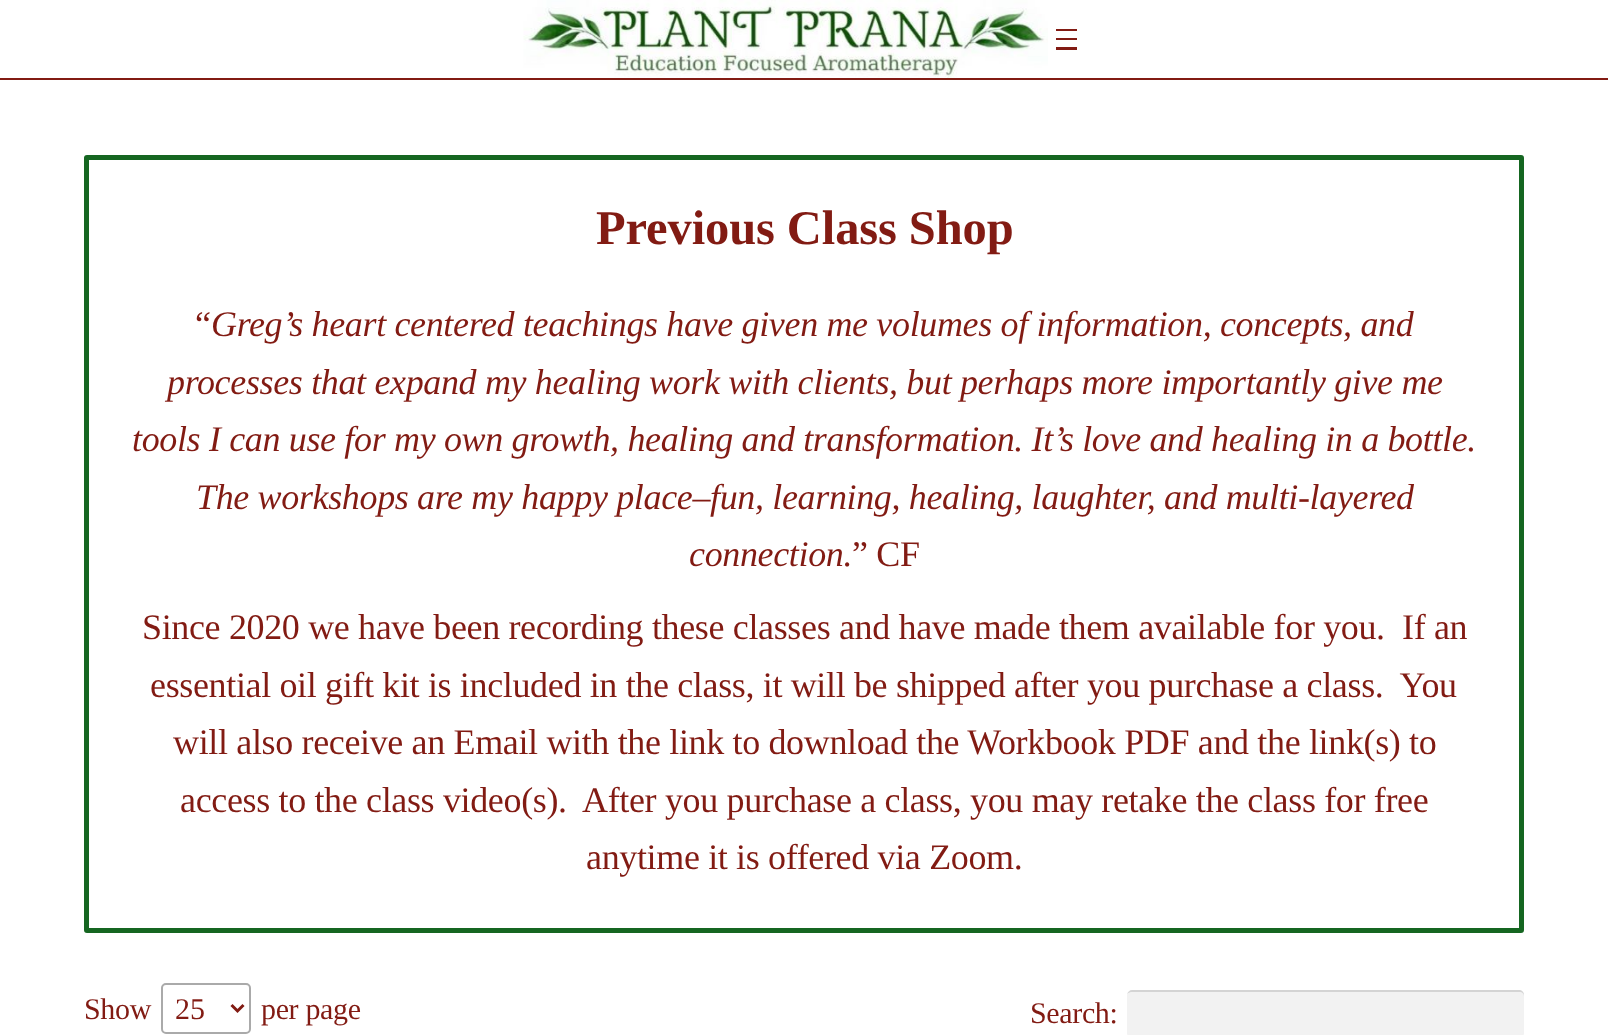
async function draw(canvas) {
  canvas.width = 1608;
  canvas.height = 1035;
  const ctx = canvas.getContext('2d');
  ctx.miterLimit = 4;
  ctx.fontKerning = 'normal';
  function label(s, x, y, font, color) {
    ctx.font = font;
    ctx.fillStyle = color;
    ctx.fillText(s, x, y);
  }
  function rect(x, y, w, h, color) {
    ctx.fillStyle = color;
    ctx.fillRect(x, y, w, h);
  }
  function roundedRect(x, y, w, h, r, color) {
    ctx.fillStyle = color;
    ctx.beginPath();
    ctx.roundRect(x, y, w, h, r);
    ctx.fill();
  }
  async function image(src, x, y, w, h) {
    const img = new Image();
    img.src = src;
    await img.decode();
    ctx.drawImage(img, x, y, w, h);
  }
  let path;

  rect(0, 0, 1608, 1035, '#fff');
  rect(0, 78, 1608, 2, '#821b13');
  await image('assets/img1.png', 523, 0, 525, 78);
  rect(1056, 29, 21, 2, '#821b13');
  rect(1056, 38, 21, 2, '#821b13');
  rect(1056, 47, 21, 3, '#821b13');
  ctx.beginPath();
  ctx.roundRect(86.5, 157.5, 1435, 773, 0.5);
  ctx.strokeStyle = '#156621';
  ctx.lineWidth = 5;
  ctx.stroke();
  ctx.letterSpacing = '-0.1px';
  label('Previous Class Shop', 596, 244, 'bold 48.5px Liberation Serif', '#821b13');
  ctx.letterSpacing = '-0.35px';
  label('“', 195, 336, '36px Liberation Serif', '#821b13');
  label('Greg’s heart centered teachings have given me volumes of information, concepts, and', 211, 336, 'italic 36px Liberation Serif', '#821b13');
  label('processes that expand my healing work with clients, but perhaps more importantly give me', 167, 394, 'italic 36px Liberation Serif', '#821b13');
  label('tools I can use for my own growth, healing and transformation. It’s love and healing in a bottle.', 132, 451, 'italic 36px Liberation Serif', '#821b13');
  label('The workshops are my happy place–fun, learning, healing, laughter, and multi-layered', 196, 509, 'italic 36px Liberation Serif', '#821b13');
  label('connection.', 689, 566, 'italic 36px Liberation Serif', '#821b13');
  label('” CF', 852, 566, '36px Liberation Serif', '#821b13');
  label('Since 2020 we have been recording these classes and have made them available for you.  If an', 142, 639, '36px Liberation Serif', '#821b13');
  label('essential oil gift kit is included in the class, it will be shipped after you purchase a class.  You', 150, 697, '36px Liberation Serif', '#821b13');
  label('will also receive an Email with the link to download the Workbook PDF and the link(s) to', 173, 754, '36px Liberation Serif', '#821b13');
  label('access to the class video(s).  After you purchase a class, you may retake the class for free', 180, 812, '36px Liberation Serif', '#821b13');
  label('anytime it is offered via Zoom.', 586, 869, '36px Liberation Serif', '#821b13');
  label('Show', 84, 1019, '30px Liberation Serif', '#821b13');
  ctx.beginPath();
  ctx.roundRect(162, 984, 88, 49, 4);
  ctx.strokeStyle = '#aaa';
  ctx.lineWidth = 2;
  ctx.stroke();
  path = new Path2D('M231.5 1005L237.5 1011L243.5 1005');
  ctx.strokeStyle = '#821b13';
  ctx.lineWidth = 3;
  ctx.stroke(path);
  ctx.letterSpacing = '0px';
  label('25', 175, 1019, '30px Liberation Serif', '#821b13');
  ctx.letterSpacing = '-0.35px';
  label('per page', 261, 1019, '30px Liberation Serif', '#821b13');
  label('Search:', 1030, 1023, '30px Liberation Serif', '#821b13');
  roundedRect(1127, 990, 397, 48, 5, '#f2f2f2');
  ctx.fillStyle = '#0000001f';
  path = new Path2D('M1131 992H1520C1522 992 1524 994 1524 996V995C1524 992 1522 990 1519 990H1132C1130 990 1128 992 1127 994C1128 993 1130 992 1131 992Z');
  ctx.fill(path);
}

draw(document.querySelector('canvas'));
